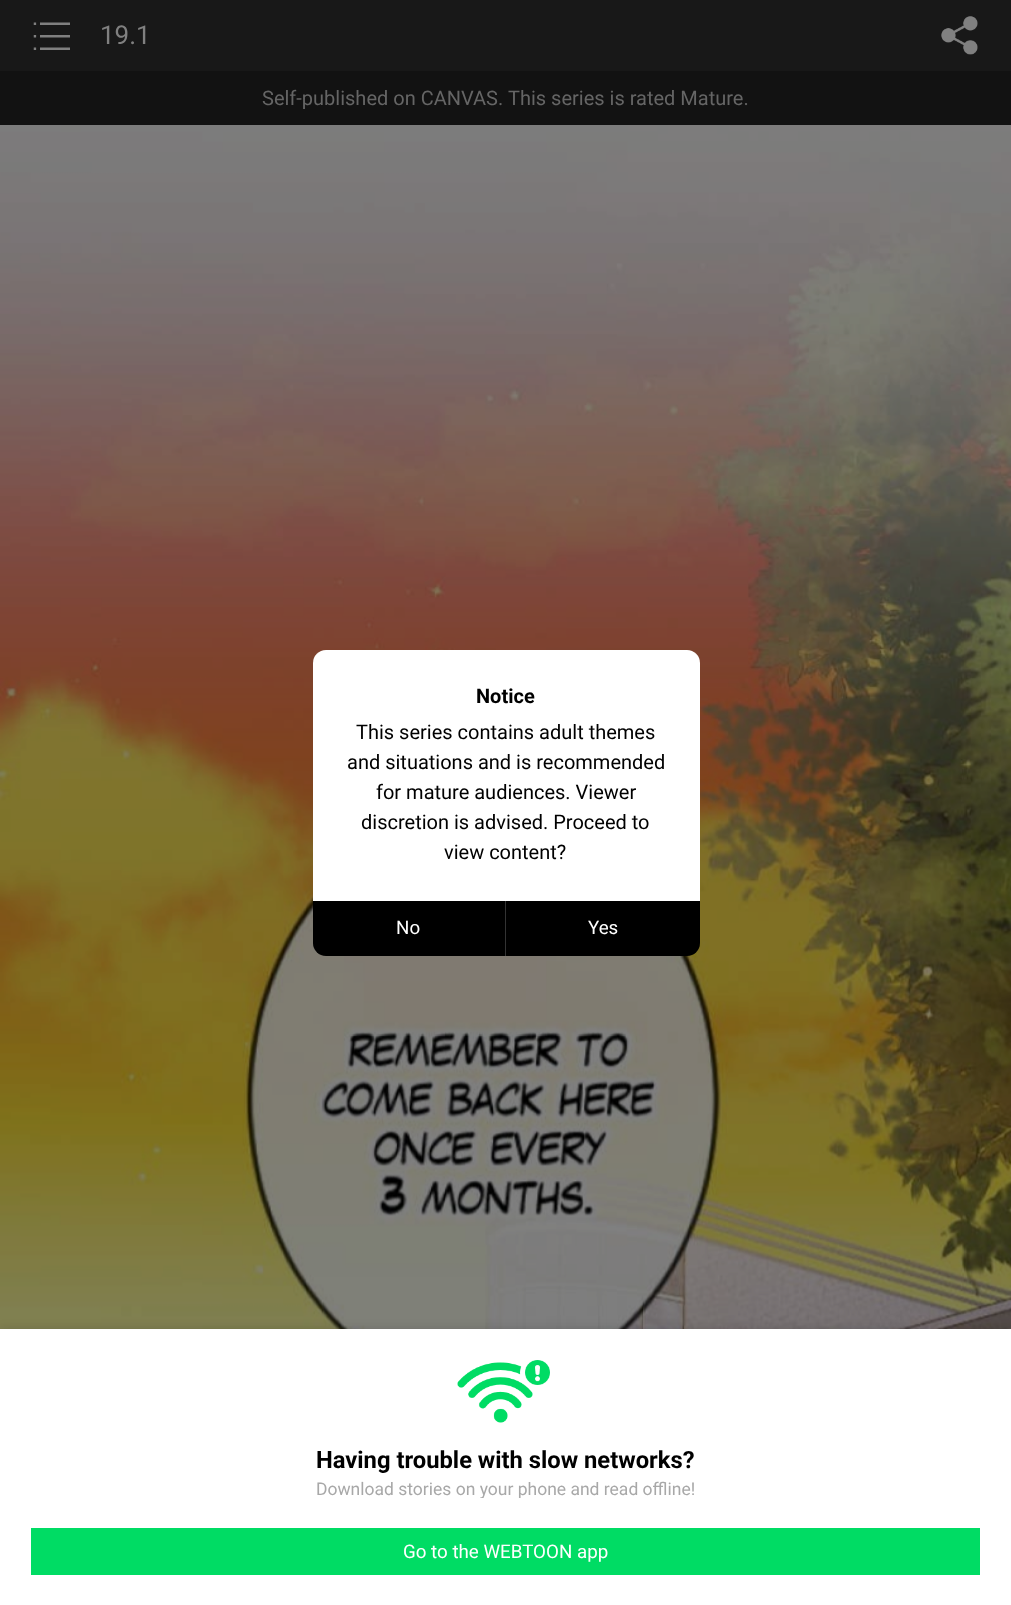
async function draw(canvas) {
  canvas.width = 1011;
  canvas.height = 1605;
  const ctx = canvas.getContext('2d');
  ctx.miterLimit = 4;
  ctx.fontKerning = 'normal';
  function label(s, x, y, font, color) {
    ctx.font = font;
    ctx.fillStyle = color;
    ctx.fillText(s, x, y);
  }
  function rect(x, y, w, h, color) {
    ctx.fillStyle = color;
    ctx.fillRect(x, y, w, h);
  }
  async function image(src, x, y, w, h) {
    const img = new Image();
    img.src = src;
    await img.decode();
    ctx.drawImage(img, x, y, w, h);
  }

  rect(0, 0, 1011, 1605, '#fff');
  rect(0, 0, 1011, 71, '#181818');
  await image('assets/img1.png', 33, 22, 37, 28);
  label('19.1', 100, 44, '26px Roboto', '#808080');
  await image('assets/img2.png', 941, 16, 37, 39);
  rect(0, 71, 1011, 54, '#121212');
  label('Self-published on CANVAS.', 262, 105, '20px Roboto', '#656565');
  label('This series is rated Mature.', 508, 105, '20px Roboto', '#656565');
  await image('assets/img3.png', 0, 125, 1011, 1204);
  ctx.fillStyle = '#fff';
  ctx.beginPath();
  ctx.roundRect(313, 650, 387, 251, [13, 13, 0, 0]);
  ctx.fill();
  label('Notice', 476, 703, 'bold 20px Roboto', '#000');
  label('This series contains adult themes', 356, 739, '20px Roboto', '#000');
  label('and situations and is recommended', 347, 769, '20px Roboto', '#000');
  label('for mature audiences. Viewer', 376, 799, '20px Roboto', '#000');
  label('discretion is advised. Proceed to', 361, 829, '20px Roboto', '#000');
  label('view content?', 444, 859, '20px Roboto', '#000');
  ctx.beginPath();
  ctx.roundRect(313, 901, 387, 55, [0, 0, 13, 13]);
  ctx.fill();
  label('No', 396, 934, '18.75px Roboto', '#fff');
  rect(505, 901, 1, 55, '#333');
  label('Yes', 588, 934, '18.75px Roboto', '#fff');
  ctx.fillStyle = '#00000033';
  ctx.filter = 'blur(6px)';
  ctx.beginPath();
  ctx.rect(0, 1331, 1011, 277);
  ctx.fill();
  ctx.filter = 'none';
  rect(0, 1329, 1011, 276, '#fff');
  await image('assets/img4.png', 457, 1360, 93, 63);
  label('Having trouble with slow networks?', 316, 1468, 'bold 23.75px Roboto', '#000');
  ctx.save();
  ctx.beginPath();
  ctx.rect(31, 1480, 949, 18);
  ctx.clip();
  label('Download stories on your phone and read offline!', 316, 1495, '17.5px Roboto', '#a8a8a8');
  ctx.restore();
  rect(31, 1528, 949, 47, '#00dc64');
  label('Go to the WEBTOON app', 403, 1558, '18.75px Roboto', '#fff');
}

draw(document.querySelector('canvas'));
